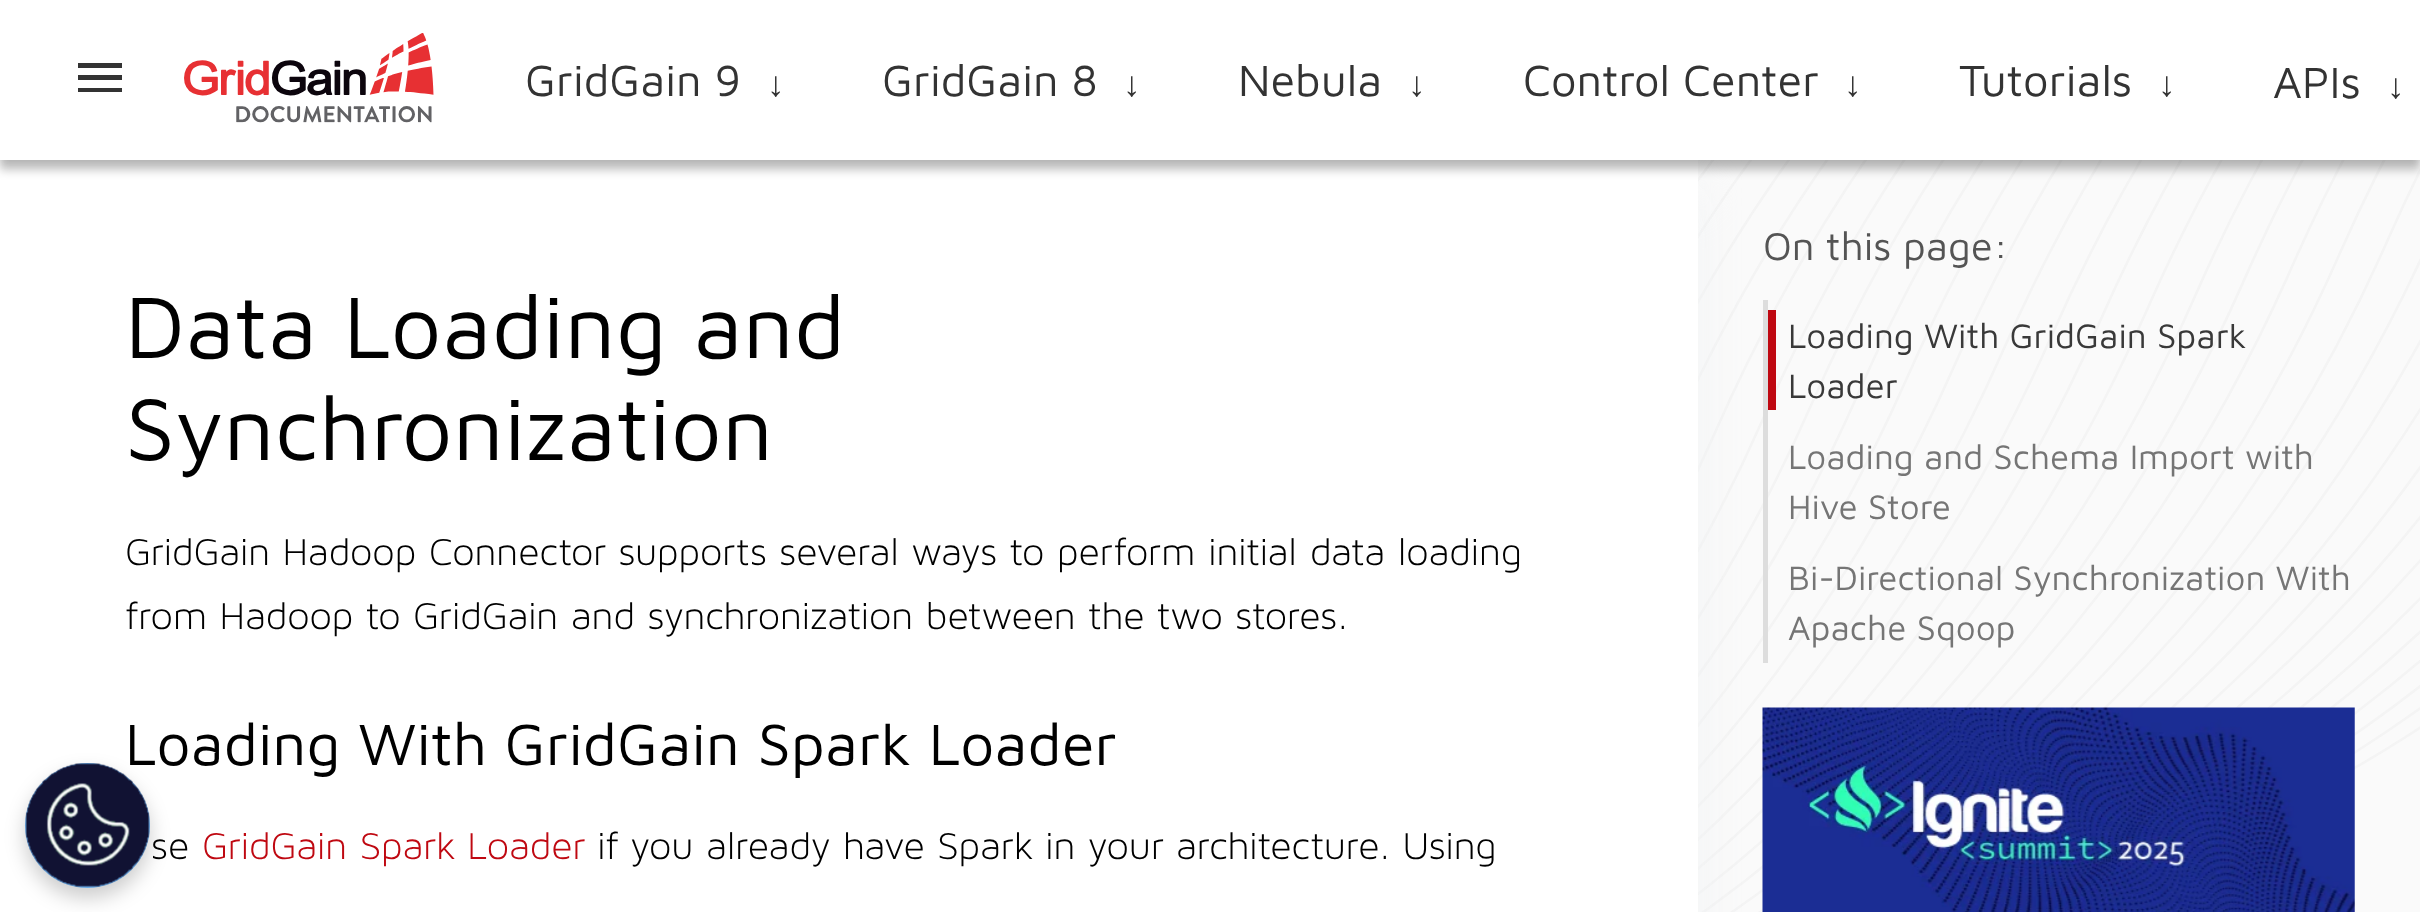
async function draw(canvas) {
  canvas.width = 2420;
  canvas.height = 912;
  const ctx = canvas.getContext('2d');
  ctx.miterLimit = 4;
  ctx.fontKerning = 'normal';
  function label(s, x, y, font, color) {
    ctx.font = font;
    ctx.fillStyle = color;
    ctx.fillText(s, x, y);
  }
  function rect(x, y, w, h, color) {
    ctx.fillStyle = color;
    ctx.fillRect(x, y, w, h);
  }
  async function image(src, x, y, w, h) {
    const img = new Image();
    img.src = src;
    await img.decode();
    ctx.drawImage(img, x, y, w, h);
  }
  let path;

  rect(0, 0, 2420, 912, '#fafafa');
  await image('assets/img1.png', 1698, 160, 722, 752);
  ctx.fillStyle = '#f0f2f4';
  ctx.filter = 'blur(25px)';
  ctx.beginPath();
  ctx.rect(-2, 193, 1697, 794);
  ctx.fill();
  ctx.filter = 'none';
  rect(0, 160, 1698, 752, '#fff');
  ctx.fillStyle = '#0000001f';
  ctx.filter = 'blur(5px)';
  ctx.beginPath();
  ctx.rect(0, 0, 2420, 160);
  ctx.fill();
  ctx.filter = 'none';
  ctx.fillStyle = '#0000003d';
  ctx.filter = 'blur(5px)';
  ctx.beginPath();
  ctx.rect(0, 10, 2420, 160);
  ctx.fill();
  ctx.filter = 'none';
  rect(0, 0, 2420, 160, '#fff');
  ctx.save();
  ctx.beginPath();
  ctx.rect(78, 63, 45, 30);
  ctx.clip();
  ctx.fillStyle = '#333';
  path = new Path2D('M78 92H122V88H78ZM78 80H122V75H78ZM78 62V68H122V62Z');
  ctx.fill(path);
  ctx.restore();
  await image('assets/img2.png', 184, 33, 250, 90);
  label('GridGain 9', 525, 96, '45px Maven Pro', '#333');
  label('↓', 767, 96, '35px Liberation Sans', '#333');
  label('GridGain 8', 882, 96, '45px Maven Pro', '#333');
  label('↓', 1123, 96, '35px Liberation Sans', '#333');
  label('Nebula', 1238, 96, '45px Maven Pro', '#333');
  label('↓', 1408, 96, '35px Liberation Sans', '#333');
  label('Control Center', 1523, 96, '45px Maven Pro', '#333');
  label('↓', 1844, 96, '35px Liberation Sans', '#333');
  label('Tutorials', 1959, 96, '45px Maven Pro', '#333');
  label('↓', 2158, 96, '35px Liberation Sans', '#333');
  label('APIs', 2273, 98, '45px Maven Pro', '#333');
  label('↓', 2387, 98, '35px Liberation Sans', '#333');
  ctx.fillStyle = '#00000033';
  ctx.filter = 'blur(10px)';
  ctx.beginPath();
  ctx.roundRect(25, 773, 125, 125, 62.5);
  ctx.fill();
  ctx.filter = 'none';
  label('Loading With GridGain Spark Loader', 125, 765, '60px Maven Pro', '#000');
  ctx.fillStyle = '#6aaae4';
  ctx.beginPath();
  ctx.arc(87.5, 825.5, 62.5, 0, 2 * Math.PI);
  ctx.fill();
  await image('assets/img3.png', 25, 763, 125, 124);
  label('Data Loading and', 125, 358, '90px Maven Pro', '#000');
  label('Synchronization', 125, 460, '90px Maven Pro', '#000');
  label('GridGain Hadoop Connector supports several ways to perform initial data loading', 125, 565, '300 40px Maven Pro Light', '#000');
  label('from Hadoop to GridGain and synchronization between the two stores.', 125, 629, '300 40px Maven Pro Light', '#000');
  label('se', 151, 859, '300 40px Maven Pro Light', '#000');
  label('GridGain Spark Loader', 202, 859, '300 40px Maven Pro Light', '#bf0811');
  label('if you already have Spark in your architecture. Using', 597, 859, '300 40px Maven Pro Light', '#000');
  label('On this page:', 1763, 260, '40px Maven Pro', '#545454');
  rect(1763, 300, 5, 363, '#ddd');
  rect(1768, 310, 8, 100, '#bf0811');
  label('Loading With GridGain Spark', 1788, 348, '35px Maven Pro', '#393939');
  label('Loader', 1788, 398, '35px Maven Pro', '#393939');
  label('Loading and Schema Import with', 1788, 469, '35px Maven Pro', '#757575');
  label('Hive Store', 1788, 519, '35px Maven Pro', '#757575');
  label('Bi-Directional Synchronization With', 1788, 590, '35px Maven Pro', '#757575');
  label('Apache Sqoop', 1788, 640, '35px Maven Pro', '#757575');
  await image('assets/img4.png', 1762, 707, 593, 205);
}

draw(document.querySelector('canvas'));
